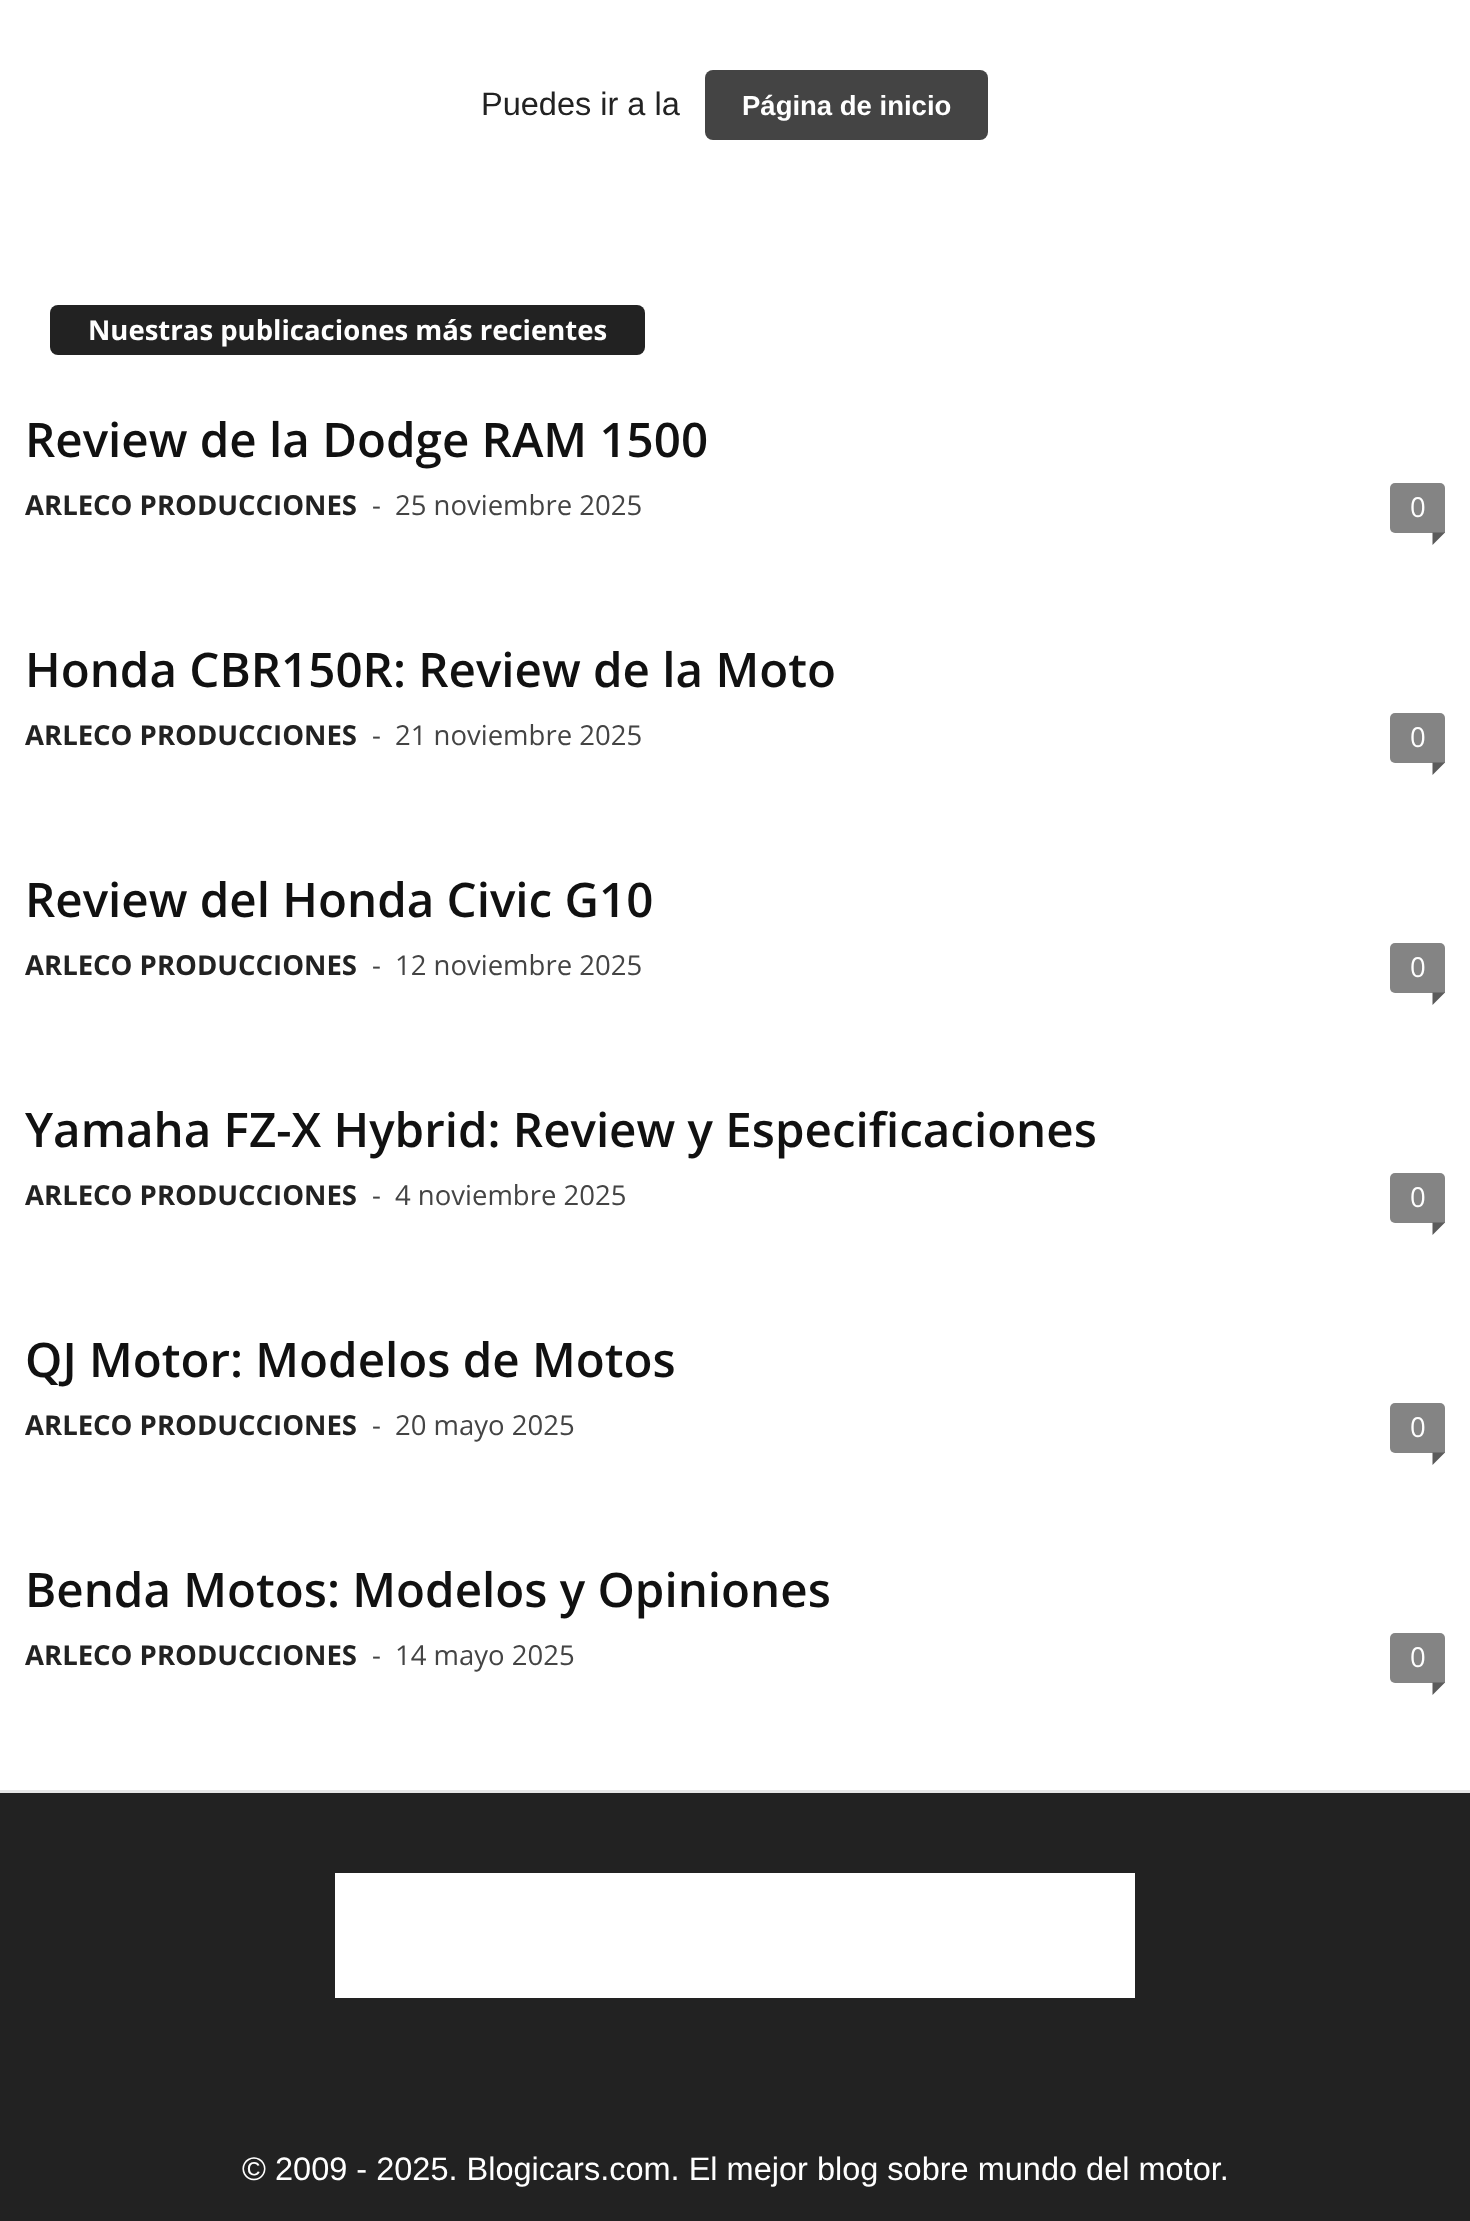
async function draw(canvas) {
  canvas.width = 1470;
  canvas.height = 2221;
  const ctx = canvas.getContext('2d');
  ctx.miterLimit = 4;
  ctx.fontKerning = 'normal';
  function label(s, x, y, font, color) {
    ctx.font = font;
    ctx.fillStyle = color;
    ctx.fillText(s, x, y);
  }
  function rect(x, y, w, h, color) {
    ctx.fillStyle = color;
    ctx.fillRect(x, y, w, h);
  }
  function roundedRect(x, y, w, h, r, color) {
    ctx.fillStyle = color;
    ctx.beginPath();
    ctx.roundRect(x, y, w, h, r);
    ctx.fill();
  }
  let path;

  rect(0, 0, 1470, 2221, '#fff');
  rect(0, 1790, 1470, 3, '#e6e6e6');
  label('Puedes ir a la', 481, 115, '32.5px Liberation Sans', '#222');
  roundedRect(705, 70, 283, 70, 8, '#444');
  label('Página de inicio', 742, 115, 'bold 27.5px Liberation Sans', '#fff');
  roundedRect(50, 305, 595, 50, 8, '#222');
  label('Nuestras publicaciones más recientes', 88, 340, 'bold 27.5px Open Sans', '#fff');
  label('Review de la Dodge RAM 1500', 25, 457, '600 47.5px Open Sans', '#111');
  label('ARLECO PRODUCCIONES', 25, 515, 'bold 27.5px Open Sans', '#222');
  label('-', 372, 515, '27.5px Open Sans', '#444');
  label('25 noviembre 2025', 395, 515, '27.5px Open Sans', '#444');
  ctx.fillStyle = '#848484';
  ctx.beginPath();
  ctx.roundRect(1390, 483, 55, 50, [5, 5, 0, 5]);
  ctx.fill();
  label('0', 1410, 517, '27.5px Open Sans', '#fff');
  ctx.fillStyle = '#5b5b5b';
  path = new Path2D('M1432.5 532.5H1445L1432.5 545Z');
  ctx.fill(path);
  label('Honda CBR150R: Review de la Moto', 25, 687, '600 47.5px Open Sans', '#111');
  label('ARLECO PRODUCCIONES', 25, 745, 'bold 27.5px Open Sans', '#222');
  label('-', 372, 745, '27.5px Open Sans', '#444');
  label('21 noviembre 2025', 395, 745, '27.5px Open Sans', '#444');
  ctx.fillStyle = '#848484';
  ctx.beginPath();
  ctx.roundRect(1390, 713, 55, 50, [5, 5, 0, 5]);
  ctx.fill();
  label('0', 1410, 747, '27.5px Open Sans', '#fff');
  ctx.fillStyle = '#5b5b5b';
  path = new Path2D('M1432.5 762.5H1445L1432.5 775Z');
  ctx.fill(path);
  label('Review del Honda Civic G10', 25, 917, '600 47.5px Open Sans', '#111');
  label('ARLECO PRODUCCIONES', 25, 975, 'bold 27.5px Open Sans', '#222');
  label('-', 372, 975, '27.5px Open Sans', '#444');
  label('12 noviembre 2025', 395, 975, '27.5px Open Sans', '#444');
  ctx.fillStyle = '#848484';
  ctx.beginPath();
  ctx.roundRect(1390, 943, 55, 50, [5, 5, 0, 5]);
  ctx.fill();
  label('0', 1410, 977, '27.5px Open Sans', '#fff');
  ctx.fillStyle = '#5b5b5b';
  path = new Path2D('M1432.5 992.5H1445L1432.5 1005Z');
  ctx.fill(path);
  label('Yamaha FZ-X Hybrid: Review y Especificaciones', 25, 1147, '600 47.5px Open Sans', '#111');
  label('ARLECO PRODUCCIONES', 25, 1205, 'bold 27.5px Open Sans', '#222');
  label('-', 372, 1205, '27.5px Open Sans', '#444');
  label('4 noviembre 2025', 395, 1205, '27.5px Open Sans', '#444');
  ctx.fillStyle = '#848484';
  ctx.beginPath();
  ctx.roundRect(1390, 1173, 55, 50, [5, 5, 0, 5]);
  ctx.fill();
  label('0', 1410, 1207, '27.5px Open Sans', '#fff');
  ctx.fillStyle = '#5b5b5b';
  path = new Path2D('M1432.5 1222.5H1445L1432.5 1235Z');
  ctx.fill(path);
  label('QJ Motor: Modelos de Motos', 25, 1377, '600 47.5px Open Sans', '#111');
  label('ARLECO PRODUCCIONES', 25, 1435, 'bold 27.5px Open Sans', '#222');
  label('-', 372, 1435, '27.5px Open Sans', '#444');
  label('20 mayo 2025', 395, 1435, '27.5px Open Sans', '#444');
  ctx.fillStyle = '#848484';
  ctx.beginPath();
  ctx.roundRect(1390, 1403, 55, 50, [5, 5, 0, 5]);
  ctx.fill();
  label('0', 1410, 1437, '27.5px Open Sans', '#fff');
  ctx.fillStyle = '#5b5b5b';
  path = new Path2D('M1432.5 1452.5H1445L1432.5 1465Z');
  ctx.fill(path);
  label('Benda Motos: Modelos y Opiniones', 25, 1607, '600 47.5px Open Sans', '#111');
  label('ARLECO PRODUCCIONES', 25, 1665, 'bold 27.5px Open Sans', '#222');
  label('-', 372, 1665, '27.5px Open Sans', '#444');
  label('14 mayo 2025', 395, 1665, '27.5px Open Sans', '#444');
  ctx.fillStyle = '#848484';
  ctx.beginPath();
  ctx.roundRect(1390, 1633, 55, 50, [5, 5, 0, 5]);
  ctx.fill();
  label('0', 1410, 1667, '27.5px Open Sans', '#fff');
  ctx.fillStyle = '#5b5b5b';
  path = new Path2D('M1432.5 1682.5H1445L1432.5 1695Z');
  ctx.fill(path);
  rect(0, 1793, 1470, 428, '#222');
  rect(335, 1873, 800, 125, '#fff');
  label('© 2009 - 2025. Blogicars.com. El mejor blog sobre mundo del motor.', 242, 2180, '32.5px Liberation Sans', '#fff');
}

draw(document.querySelector('canvas'));
